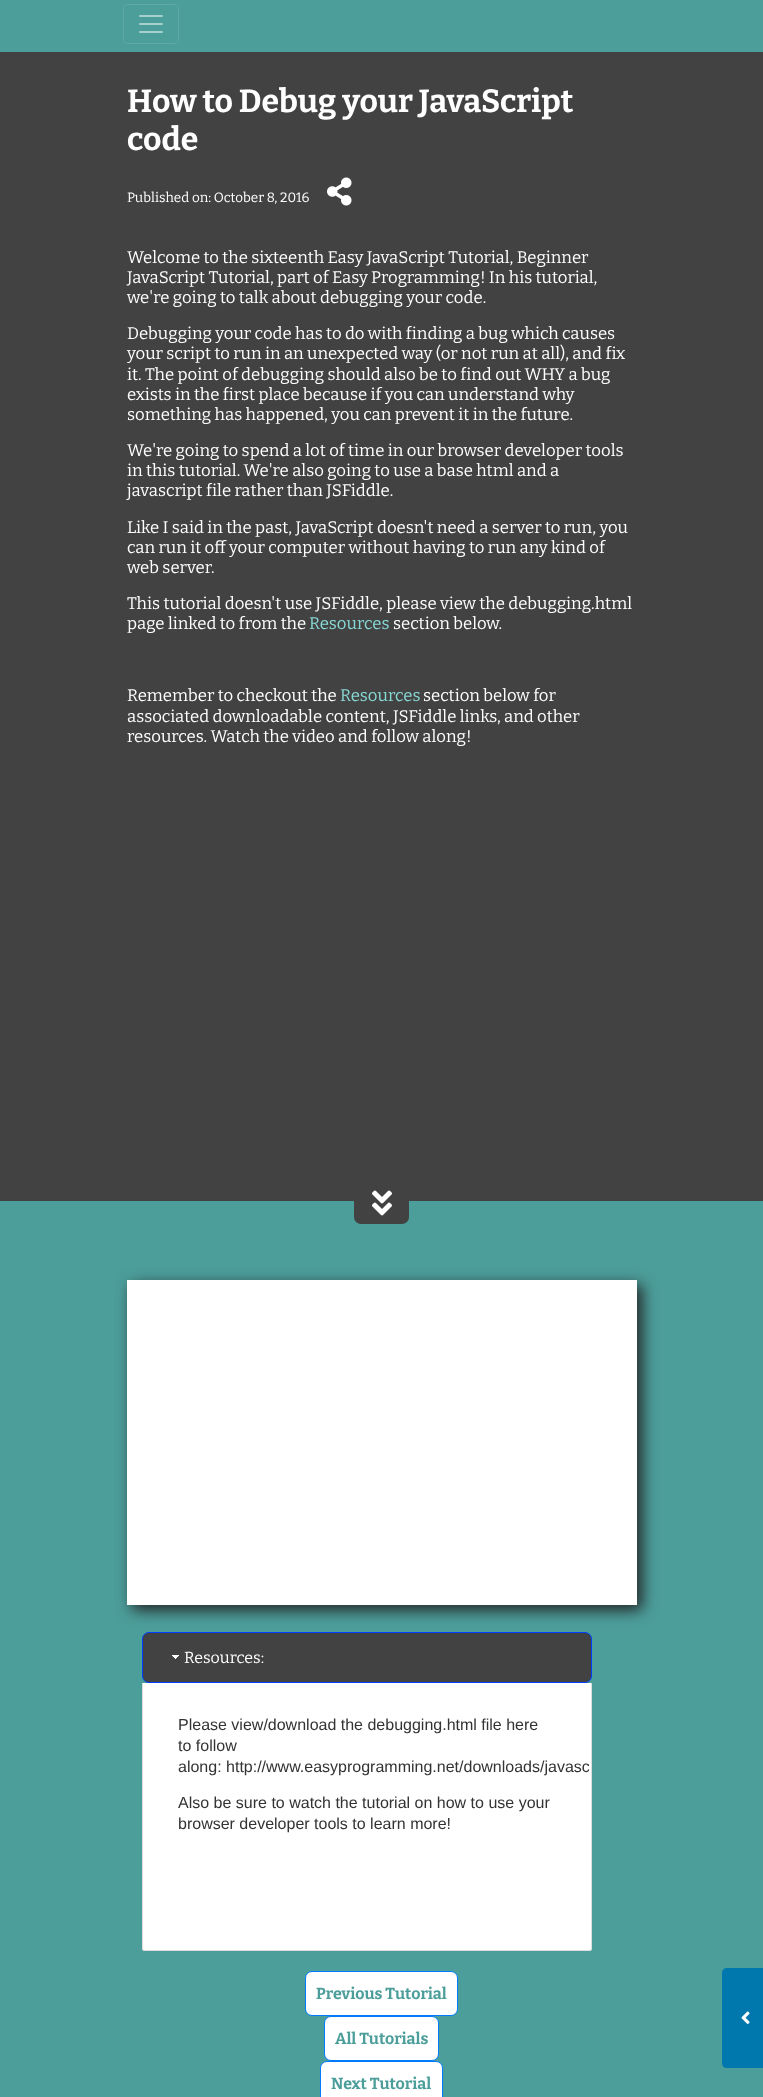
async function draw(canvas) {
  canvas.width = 763;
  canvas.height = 2097;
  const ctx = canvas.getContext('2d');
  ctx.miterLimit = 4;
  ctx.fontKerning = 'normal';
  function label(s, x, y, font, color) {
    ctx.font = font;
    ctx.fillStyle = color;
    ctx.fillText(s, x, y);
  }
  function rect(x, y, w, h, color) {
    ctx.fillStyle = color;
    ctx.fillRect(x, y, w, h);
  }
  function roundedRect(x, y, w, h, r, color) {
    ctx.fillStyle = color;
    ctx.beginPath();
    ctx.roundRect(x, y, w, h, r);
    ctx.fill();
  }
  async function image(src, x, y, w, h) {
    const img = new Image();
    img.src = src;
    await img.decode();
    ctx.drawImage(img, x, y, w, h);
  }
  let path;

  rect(0, 0, 763, 2097, '#424242');
  rect(0, 0, 763, 52, '#4c9e9b');
  ctx.beginPath();
  ctx.roundRect(123.5, 4.5, 55, 39, 3.5);
  ctx.strokeStyle = '#5ea8a5';
  ctx.stroke();
  await image('assets/img1.png', 139, 15, 24, 18);
  label('How to Debug your JavaScript', 127, 112, 'bold 32px Bitter', '#fff');
  label('code', 127, 150, 'bold 32px Bitter', '#fff');
  label('Published on: October 8, 2016', 127, 202, '13.5px Bitter', '#fff');
  await image('assets/img2.png', 327, 177, 25, 29);
  label('Welcome to the sixteenth Easy JavaScript Tutorial, Beginner', 127, 263, '16.8px Bitter', '#fff');
  label('JavaScript Tutorial, part of Easy Programming! In his tutorial,', 127, 283, '16.8px Bitter', '#fff');
  label('we\'re going to talk about debugging your code.', 127, 303, '16.8px Bitter', '#fff');
  label('Debugging your code has to do with finding a bug which causes', 127, 339, '16.8px Bitter', '#fff');
  label('your script to run in an unexpected way (or not run at all), and fix', 127, 359, '16.8px Bitter', '#fff');
  label('it. The point of debugging should also be to find out WHY a bug', 127, 380, '16.8px Bitter', '#fff');
  label('exists in the first place because if you can understand why', 127, 400, '16.8px Bitter', '#fff');
  label('something has happened, you can prevent it in the future.', 127, 420, '16.8px Bitter', '#fff');
  label('We\'re going to spend a lot of time in our browser developer tools', 127, 456, '16.8px Bitter', '#fff');
  label('in this tutorial. We\'re also going to use a base html and a', 127, 476, '16.8px Bitter', '#fff');
  label('javascript file rather than JSFiddle.', 127, 496, '16.8px Bitter', '#fff');
  label('Like I said in the past, JavaScript doesn\'t need a server to run, you', 127, 533, '16.8px Bitter', '#fff');
  label('can run it off your computer without having to run any kind of', 127, 553, '16.8px Bitter', '#fff');
  label('web server.', 127, 573, '16.8px Bitter', '#fff');
  label('This tutorial doesn\'t use JSFiddle, please view the debugging.html', 127, 609, '16.8px Bitter', '#fff');
  label('page linked to from the', 127, 629, '16.8px Bitter', '#fff');
  label('Resources', 309, 629, '16.8px Bitter', '#88dad7');
  label('section below.', 393, 629, '16.8px Bitter', '#fff');
  label('Remember to checkout the', 127, 701, '16.8px Bitter', '#fff');
  label('Resources', 340, 701, '16.8px Bitter', '#88dad7');
  label('section below for', 423, 701, '16.8px Bitter', '#fff');
  label('associated downloadable content, JSFiddle links, and other', 127, 722, '16.8px Bitter', '#fff');
  label('resources. Watch the video and follow along!', 127, 742, '16.8px Bitter', '#fff');
  rect(0, 1201, 763, 896, '#4c9e9b');
  roundedRect(354, 1179, 55, 45, 7, '#424242');
  await image('assets/img3.png', 372, 1190, 20, 26);
  ctx.fillStyle = '#222';
  ctx.filter = 'blur(7.5px)';
  ctx.beginPath();
  ctx.rect(132, 1285, 510, 325);
  ctx.fill();
  ctx.filter = 'none';
  rect(127, 1280, 510, 325, '#fff');
  ctx.fillStyle = '#424242';
  ctx.beginPath();
  ctx.roundRect(142.5, 1632.5, 449, 50, 6.5);
  ctx.fill();
  ctx.strokeStyle = '#003eff';
  ctx.stroke();
  await image('assets/img4.png', 172, 1655, 7, 4);
  label('Resources:', 184, 1663, '16px Bitter', '#fff');
  ctx.beginPath();
  ctx.roundRect(142, 1683, 450, 268, [0, 0, 3, 3]);
  ctx.fill();
  ctx.fillStyle = '#ddd';
  path = new Path2D('M142 1683H592V1948C592 1950 591 1951 589 1951H145C143 1951 142 1950 142 1948ZM143 1683H591V1948C591 1949 590 1950 589 1950H145C144 1950 143 1949 143 1948Z');
  ctx.fill(path, 'evenodd');
  label('Please view/download the debugging.html file here', 178, 1730, '16px Liberation Sans', '#333');
  label('to follow', 178, 1751, '16px Liberation Sans', '#333');
  label('along: http://www.easyprogramming.net/downloads/javasc', 178, 1772, '16px Liberation Sans', '#333');
  label('Also be sure to watch the tutorial on how to use your', 178, 1808, '16px Liberation Sans', '#333');
  label('browser developer tools to learn more!', 178, 1829, '16px Liberation Sans', '#333');
  ctx.fillStyle = '#fff';
  ctx.beginPath();
  ctx.roundRect(305.5, 1971.5, 152, 44, 6.5);
  ctx.fill();
  ctx.strokeStyle = '#007bff';
  ctx.stroke();
  label('Previous Tutorial', 316, 1999, 'bold 16px Bitter', '#4c9e9b');
  ctx.fillStyle = '#fff';
  ctx.beginPath();
  ctx.roundRect(324.5, 2016.5, 114, 44, 6.5);
  ctx.fill();
  ctx.stroke();
  label('All Tutorials', 335, 2044, 'bold 16px Bitter', '#4c9e9b');
  ctx.fillStyle = '#fff';
  ctx.beginPath();
  ctx.roundRect(320.5, 2061.5, 122, 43, 6.5);
  ctx.fill();
  ctx.stroke();
  label('Next Tutorial', 331, 2089, 'bold 16px Bitter', '#4c9e9b');
  ctx.fillStyle = '#0078ae';
  path = new Path2D('M722 2063V1973C722 1970 724 1968 727 1968H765C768 1968 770 1970 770 1973V2063C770 2066 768 2068 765 2068H727C724 2068 722 2066 722 2063Z');
  ctx.fill(path);
  await image('assets/img5.png', 741, 2011, 9, 13);
}

draw(document.querySelector('canvas'));
